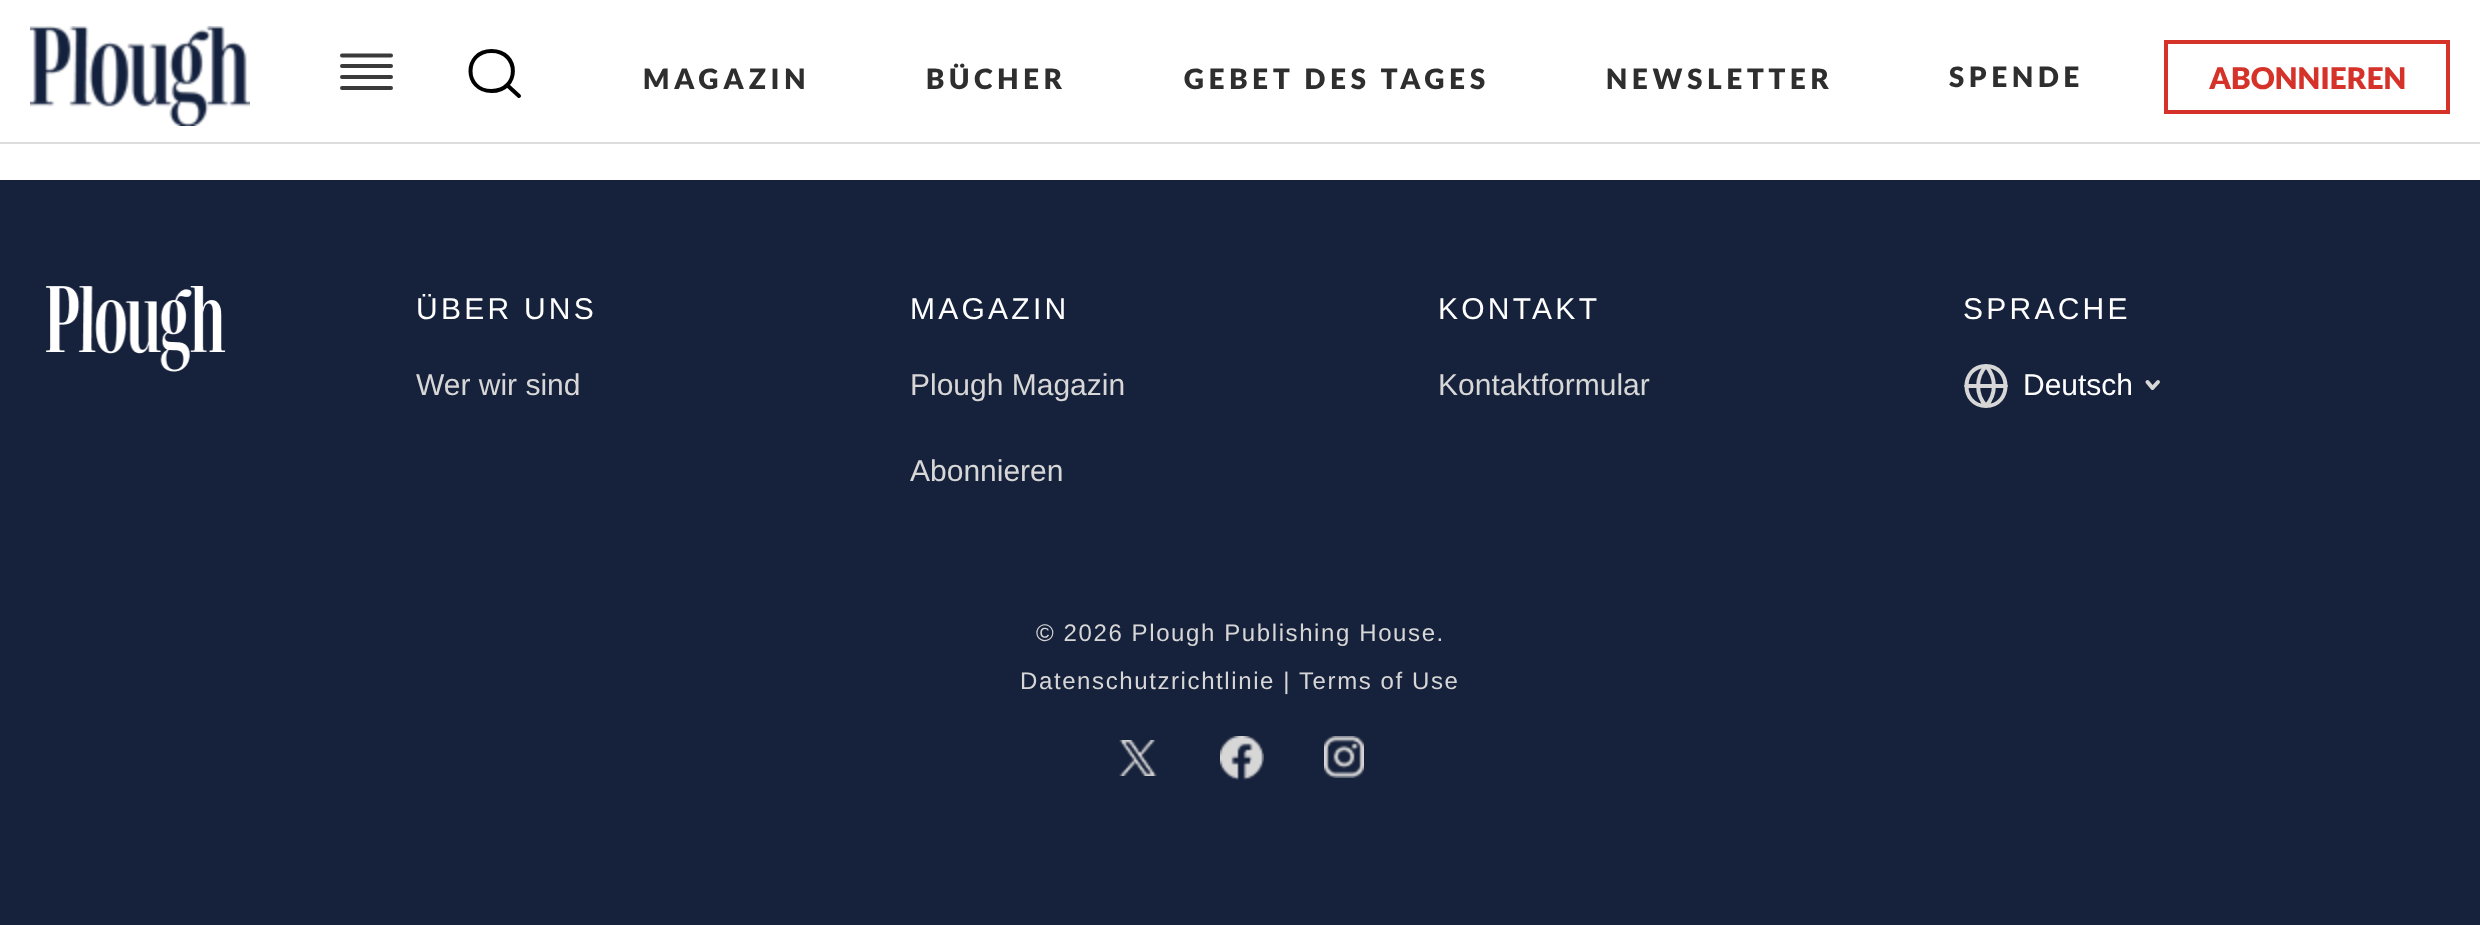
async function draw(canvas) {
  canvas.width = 2480;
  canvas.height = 925;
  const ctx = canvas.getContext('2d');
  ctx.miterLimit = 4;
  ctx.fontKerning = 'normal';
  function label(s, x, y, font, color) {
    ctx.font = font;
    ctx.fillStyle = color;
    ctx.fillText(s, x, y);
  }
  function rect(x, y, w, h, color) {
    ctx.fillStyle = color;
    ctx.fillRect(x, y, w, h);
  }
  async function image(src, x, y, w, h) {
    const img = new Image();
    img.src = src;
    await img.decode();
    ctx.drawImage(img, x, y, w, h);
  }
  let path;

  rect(0, 0, 2480, 925, '#fff');
  rect(0, 142, 2480, 2, '#ddd');
  await image('assets/img1.png', 30, 26, 220, 100);
  path = new Path2D('M391 88H342M391 77H342M391 66H342M391 55.5H342');
  ctx.strokeStyle = '#3a3a3a';
  ctx.lineWidth = 4;
  ctx.lineCap = 'round';
  ctx.lineJoin = 'round';
  ctx.stroke(path);
  path = new Path2D('M491.5 91C520 91 520 51 491.5 51C463.5 51 463.5 91 491.5 91ZM519 96L507 85');
  ctx.strokeStyle = '#000';
  ctx.stroke(path);
  ctx.letterSpacing = '4.75px';
  label('MAGAZIN', 643, 89, '900 28px Lato', '#2e2e2e');
  label('BÜCHER', 926, 89, '900 28px Lato', '#2e2e2e');
  label('GEBET DES TAGES', 1184, 89, '900 28px Lato', '#2e2e2e');
  label('NEWSLETTER', 1606, 89, '900 28px Lato', '#2e2e2e');
  label('SPENDE', 1949, 87, '900 28px Lato', '#2e2e2e');
  ctx.strokeStyle = '#d5332a';
  ctx.lineJoin = 'miter';
  ctx.strokeRect(2166, 42, 282, 70);
  ctx.letterSpacing = '0px';
  label('ABONNIEREN', 2209, 89, '900 30px Lato', '#d5332a');
  rect(0, 180, 2480, 745, '#16223b');
  await image('assets/img2.png', 46, 286, 180, 86);
  ctx.letterSpacing = '3.25px';
  label('ÜBER UNS', 416, 319, '30px Liberation Sans', '#fff');
  ctx.letterSpacing = '0px';
  label('Wer wir sind', 416, 395, '30px Liberation Sans', '#d8d7d7');
  ctx.letterSpacing = '3.25px';
  label('MAGAZIN', 910, 319, '30px Liberation Sans', '#fff');
  ctx.letterSpacing = '0px';
  label('Plough Magazin', 910, 395, '30px Liberation Sans', '#d8d7d7');
  label('Abonnieren', 910, 481, '30px Liberation Sans', '#d8d7d7');
  ctx.letterSpacing = '3.25px';
  label('KONTAKT', 1438, 319, '30px Liberation Sans', '#fff');
  ctx.letterSpacing = '0px';
  label('Kontaktformular', 1438, 395, '30px Liberation Sans', '#d8d7d7');
  ctx.letterSpacing = '3.25px';
  label('SPRACHE', 1963, 319, '30px Liberation Sans', '#fff');
  path = new Path2D('M1986 406C2012 406 2012 366 1986 366C1960 366 1960 406 1986 406ZM1966 386H2006M1986 366C1996.5 377.5 1996.5 394.5 1986 406C1975.5 394.5 1975.5 377.5 1986 366Z');
  ctx.strokeStyle = '#d8d7d7';
  ctx.lineJoin = 'round';
  ctx.stroke(path);
  ctx.letterSpacing = '0px';
  label('Deutsch', 2023, 395, '30px Liberation Sans', '#fff');
  path = new Path2D('M2147.5 382L2152.5 388L2158 382');
  ctx.stroke(path);
  ctx.letterSpacing = '1.6px';
  label('© 2026 Plough Publishing House.', 1036, 641, '24px Liberation Sans', '#d8d7d7');
  label('Datenschutzrichtlinie |', 1020, 689, '24px Liberation Sans', '#d8d7d7');
  label('Terms of Use', 1299, 689, '24px Liberation Sans', '#d8d7d7');
  await image('assets/img3.png', 1119, 740, 38, 36);
  await image('assets/img4.png', 1220, 736, 44, 44);
  await image('assets/img5.png', 1324, 736, 40, 42);
}

draw(document.querySelector('canvas'));
